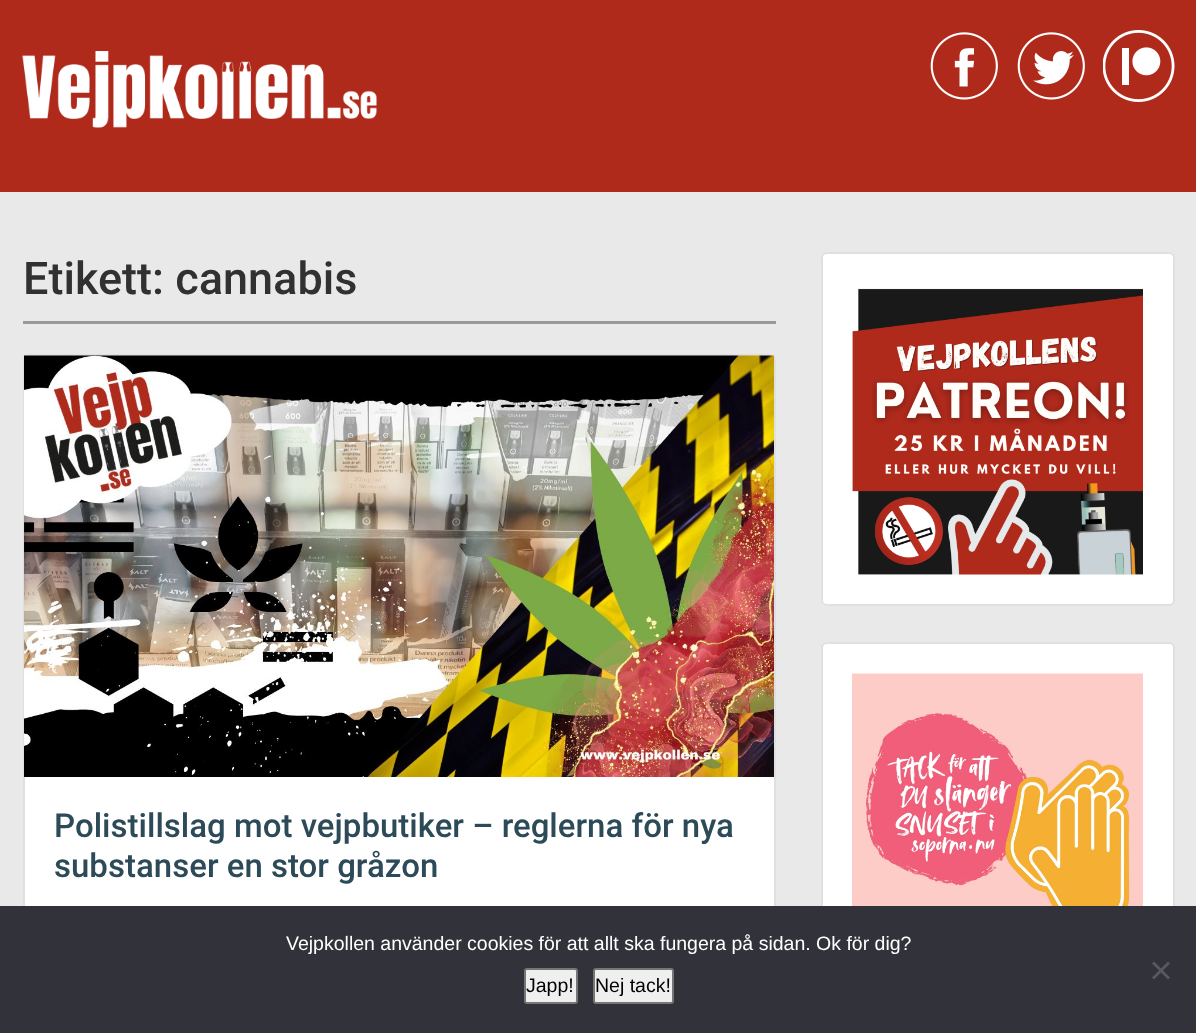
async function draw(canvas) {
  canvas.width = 1196;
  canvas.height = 1033;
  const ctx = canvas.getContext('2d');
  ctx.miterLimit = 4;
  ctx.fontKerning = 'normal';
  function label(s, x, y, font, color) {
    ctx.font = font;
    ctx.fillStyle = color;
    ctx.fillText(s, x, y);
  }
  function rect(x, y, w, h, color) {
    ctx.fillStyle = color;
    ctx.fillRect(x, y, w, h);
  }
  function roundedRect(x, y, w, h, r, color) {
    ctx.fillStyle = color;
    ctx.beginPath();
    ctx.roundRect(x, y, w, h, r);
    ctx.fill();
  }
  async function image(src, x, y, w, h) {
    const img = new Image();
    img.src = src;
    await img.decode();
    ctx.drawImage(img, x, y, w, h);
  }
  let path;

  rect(0, 0, 1196, 1033, '#eae9ea');
  rect(0, 0, 1196, 192, '#af2a1b');
  await image('assets/img1.png', 22, 51, 355, 77);
  await image('assets/img2.png', 930, 32, 68, 68);
  await image('assets/img3.png', 1017, 32, 68, 68);
  await image('assets/img4.png', 1103, 30, 72, 72);
  rect(23, 321, 753, 3, '#999');
  label('Etikett: cannabis', 23, 294, '500 45px Roboto', '#313131');
  roundedRect(23, 354, 753, 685, 6, '#fff');
  ctx.beginPath();
  ctx.roundRect(24, 355, 751, 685, 5);
  ctx.strokeStyle = '#0000001f';
  ctx.lineWidth = 2;
  ctx.stroke();
  await image('assets/img5.png', 24, 355, 750, 422);
  label('Polistillslag mot vejpbutiker – reglerna för nya', 54, 837, '500 33px Roboto', '#2c4a58');
  label('substanser en stor gråzon', 54, 877, '500 33px Roboto', '#2c4a58');
  roundedRect(821, 252, 354, 354, 6, '#fff');
  ctx.beginPath();
  ctx.roundRect(822, 253, 352, 352, 5);
  ctx.stroke();
  await image('assets/img6.png', 852, 288, 291, 287);
  roundedRect(821, 642, 354, 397, 6, '#fff');
  ctx.beginPath();
  ctx.roundRect(822, 643, 352, 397, 5);
  ctx.stroke();
  await image('assets/img7.png', 852, 673, 291, 233);
  rect(0, 906, 1196, 127, '#32323a');
  label('Vejpkollen använder cookies för att allt ska fungera på sidan. Ok för dig?', 286, 950, '19.5px Liberation Sans', '#fff');
  ctx.fillStyle = '#59595d';
  path = new Path2D('M1168 961.5L1170 963.5L1154 979.5L1152 977.5Z');
  ctx.fill(path);
  path = new Path2D('M1152 963.5L1154 961.5L1170 977.5L1168 979.5Z');
  ctx.fill(path);
  ctx.fillStyle = '#efefef';
  ctx.beginPath();
  ctx.roundRect(525, 969, 52, 34, 2);
  ctx.fill();
  ctx.strokeStyle = '#767676';
  ctx.stroke();
  label('Japp!', 526, 992, '19.5px Liberation Sans', '#000');
  ctx.fillStyle = '#efefef';
  ctx.beginPath();
  ctx.roundRect(594, 969, 79, 34, 2);
  ctx.fill();
  ctx.stroke();
  label('Nej tack!', 595, 992, '19.5px Liberation Sans', '#000');
}

draw(document.querySelector('canvas'));
